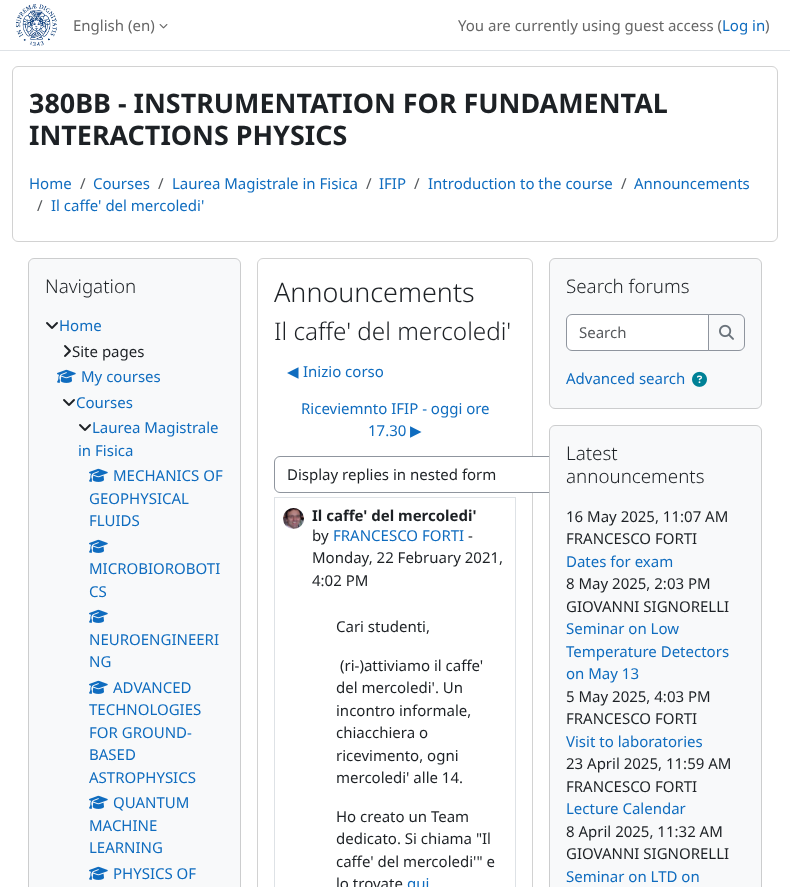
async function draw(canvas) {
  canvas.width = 790;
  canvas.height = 887;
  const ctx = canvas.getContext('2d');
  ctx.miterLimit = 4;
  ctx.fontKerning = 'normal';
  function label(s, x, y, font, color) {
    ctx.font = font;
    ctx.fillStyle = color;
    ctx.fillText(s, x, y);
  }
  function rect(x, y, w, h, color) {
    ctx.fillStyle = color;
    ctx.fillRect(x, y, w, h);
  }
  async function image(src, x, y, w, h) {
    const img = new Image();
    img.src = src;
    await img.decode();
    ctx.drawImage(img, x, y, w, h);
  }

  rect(0, 0, 790, 887, '#fff');
  rect(0, 50, 790, 1, '#dee2e6');
  await image('assets/img1.png', 16, 4, 41, 42);
  label('English (en)', 73, 31, '15px Noto Sans', '#666');
  await image('assets/img2.png', 159, 24, 9, 5);
  label('You are currently using guest access (', 458, 31, '15px Noto Sans', '#666');
  label('Log in', 722, 31, '15px Noto Sans', '#0f6cbf');
  label(')', 765, 31, '15px Noto Sans', '#666');
  ctx.beginPath();
  ctx.roundRect(12.5, 66.5, 765, 175, 5.5);
  ctx.strokeStyle = '#d2d2d2';
  ctx.stroke();
  label('380BB - INSTRUMENTATION FOR FUNDAMENTAL', 29, 113, 'bold 26.9px Noto Sans', '#1d2125');
  label('INTERACTIONS PHYSICS', 29, 145, 'bold 26.9px Noto Sans', '#1d2125');
  label('Home', 29, 189, '15px Noto Sans', '#0f6cbf');
  label('/', 80, 189, '15px Noto Sans', '#56595c');
  label('Courses', 93, 189, '15px Noto Sans', '#0f6cbf');
  label('/', 158, 189, '15px Noto Sans', '#56595c');
  label('Laurea Magistrale in Fisica', 172, 189, '15px Noto Sans', '#0f6cbf');
  label('/', 366, 189, '15px Noto Sans', '#56595c');
  label('IFIP', 379, 189, '15px Noto Sans', '#0f6cbf');
  label('/', 414, 189, '15px Noto Sans', '#56595c');
  label('Introduction to the course', 428, 189, '15px Noto Sans', '#0f6cbf');
  label('/', 621, 189, '15px Noto Sans', '#56595c');
  label('Announcements', 634, 189, '15px Noto Sans', '#0f6cbf');
  label('/', 37, 211, '15px Noto Sans', '#56595c');
  label('Il caffe\' del mercoledi\'', 51, 211, '15px Noto Sans', '#0f6cbf');
  ctx.fillStyle = '#f8f9fa';
  ctx.beginPath();
  ctx.roundRect(28.5, 258.5, 212, 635, 5.5);
  ctx.fill();
  ctx.strokeStyle = '#cccdce';
  ctx.stroke();
  label('Navigation', 45, 293, '300 18.75px Noto Sans', '#1d2125');
  await image('assets/img3.png', 46, 322, 12, 7);
  label('Home', 59, 331, '15px Noto Sans', '#0f6cbf');
  await image('assets/img4.png', 64, 345, 7, 12);
  label('Site pages', 72, 357, '15px Noto Sans', '#1d2125');
  await image('assets/img5.png', 57, 369, 19, 14);
  label('My courses', 81, 382, '15px Noto Sans', '#0f6cbf');
  await image('assets/img3.png', 63, 399, 12, 7);
  label('Courses', 76, 408, '15px Noto Sans', '#0f6cbf');
  await image('assets/img3.png', 79, 424, 12, 7);
  label('Laurea Magistrale', 92, 433, '15px Noto Sans', '#0f6cbf');
  label('in Fisica', 78, 456, '15px Noto Sans', '#0f6cbf');
  await image('assets/img5.png', 89, 468, 19, 14);
  label('MECHANICS OF', 113, 481, '15px Noto Sans', '#0f6cbf');
  label('GEOPHYSICAL', 89, 504, '15px Noto Sans', '#0f6cbf');
  label('FLUIDS', 89, 526, '15px Noto Sans', '#0f6cbf');
  await image('assets/img5.png', 89, 539, 19, 14);
  label('MICROBIOROBOTI', 89, 574, '15px Noto Sans', '#0f6cbf');
  label('CS', 89, 597, '15px Noto Sans', '#0f6cbf');
  await image('assets/img5.png', 89, 609, 19, 14);
  label('NEUROENGINEERI', 89, 645, '15px Noto Sans', '#0f6cbf');
  label('NG', 89, 667, '15px Noto Sans', '#0f6cbf');
  await image('assets/img5.png', 89, 680, 19, 14);
  label('ADVANCED', 113, 693, '15px Noto Sans', '#0f6cbf');
  label('TECHNOLOGIES', 89, 715, '15px Noto Sans', '#0f6cbf');
  label('FOR GROUND-', 89, 738, '15px Noto Sans', '#0f6cbf');
  label('BASED', 89, 760, '15px Noto Sans', '#0f6cbf');
  label('ASTROPHYSICS', 89, 783, '15px Noto Sans', '#0f6cbf');
  await image('assets/img5.png', 89, 795, 19, 14);
  label('QUANTUM', 113, 808, '15px Noto Sans', '#0f6cbf');
  label('MACHINE', 89, 831, '15px Noto Sans', '#0f6cbf');
  label('LEARNING', 89, 853, '15px Noto Sans', '#0f6cbf');
  await image('assets/img5.png', 89, 866, 19, 14);
  label('PHYSICS OF', 113, 879, '15px Noto Sans', '#0f6cbf');
  ctx.beginPath();
  ctx.roundRect(257.5, 258.5, 275, 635, 5.5);
  ctx.strokeStyle = '#d2d2d2';
  ctx.stroke();
  label('Announcements', 274, 302, '300 26.9px Noto Sans', '#1d2125');
  label('Il caffe\' del mercoledi\'', 274, 340, '300 24.25px Noto Sans', '#1d2125');
  label('◀︎', 287, 377, '15px DejaVu Sans', '#0f6cbf');
  label('Inizio corso', 303, 377, '15px Noto Sans', '#0f6cbf');
  label('Riceviemnto IFIP - oggi ore', 301, 414, '15px Noto Sans', '#0f6cbf');
  label('17.30', 368, 436, '15px Noto Sans', '#0f6cbf');
  label('▶︎', 410, 436, '15px DejaVu Sans', '#0f6cbf');
  ctx.fillStyle = '#fff';
  ctx.beginPath();
  ctx.roundRect(274.5, 456.5, 302, 36, 5.5);
  ctx.fill();
  ctx.strokeStyle = '#8f959e';
  ctx.stroke();
  label('Display replies in nested form', 287, 480, '15px Noto Sans', '#1d2125');
  ctx.strokeStyle = '#dee2e6';
  ctx.strokeRect(274.5, 497.5, 241, 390);
  await image('assets/img6.png', 283, 508, 21, 21);
  label('Il caffe\' del mercoledi\'', 312, 521, 'bold 15px Noto Sans', '#1d2125');
  label('by', 312, 541, '15px Noto Sans', '#1d2125');
  label('FRANCESCO FORTI', 333, 541, '15px Noto Sans', '#0f6cbf');
  label('-', 468, 541, '15px Noto Sans', '#1d2125');
  label('Monday, 22 February 2021,', 312, 563, '15px Noto Sans', '#1d2125');
  label('4:02 PM', 312, 586, '15px Noto Sans', '#1d2125');
  label('Cari studenti,', 336, 632, '15px Noto Sans', '#1d2125');
  label('(ri-)attiviamo il caffe\'', 340, 671, '15px Noto Sans', '#1d2125');
  label('del mercoledi\'. Un', 336, 693, '15px Noto Sans', '#1d2125');
  label('incontro informale,', 336, 716, '15px Noto Sans', '#1d2125');
  label('chiacchiera o', 336, 738, '15px Noto Sans', '#1d2125');
  label('ricevimento, ogni', 336, 761, '15px Noto Sans', '#1d2125');
  label('mercoledi\' alle 14.', 336, 783, '15px Noto Sans', '#1d2125');
  label('Ho creato un Team', 336, 822, '15px Noto Sans', '#1d2125');
  label('dedicato. Si chiama "Il', 336, 844, '15px Noto Sans', '#1d2125');
  label('caffe\' del mercoledi\'" e', 336, 867, '15px Noto Sans', '#1d2125');
  label('lo trovate', 336, 889, '15px Noto Sans', '#1d2125');
  label('qui', 407, 889, '15px Noto Sans', '#0f6cbf');
  ctx.fillStyle = '#f8f9fa';
  ctx.beginPath();
  ctx.roundRect(549.5, 258.5, 212, 150, 5.5);
  ctx.fill();
  ctx.strokeStyle = '#cccdce';
  ctx.stroke();
  label('Search forums', 566, 293, '300 18.75px Noto Sans', '#1d2125');
  ctx.fillStyle = '#fff';
  ctx.beginPath();
  ctx.roundRect(566.5, 314.5, 143, 36, [5.5, 0, 0, 5.5]);
  ctx.fill();
  ctx.strokeStyle = '#8f959e';
  ctx.stroke();
  label('Search', 579, 338, '15px Noto Sans', '#56595c');
  ctx.fillStyle = '#f8f9fa';
  ctx.beginPath();
  ctx.roundRect(708.5, 314.5, 36, 36, [0, 5.5, 5.5, 0]);
  ctx.fill();
  ctx.stroke();
  await image('assets/img7.png', 719, 324, 15, 16);
  label('Advanced search', 566, 384, '15px Noto Sans', '#0f6cbf');
  await image('assets/img8.png', 692, 371, 15, 16);
  ctx.fillStyle = '#f8f9fa';
  ctx.beginPath();
  ctx.roundRect(549.5, 425.5, 212, 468, 5.5);
  ctx.fill();
  ctx.strokeStyle = '#cccdce';
  ctx.stroke();
  label('Latest', 566, 460, '300 18.75px Noto Sans', '#1d2125');
  label('announcements', 566, 483, '300 18.75px Noto Sans', '#1d2125');
  label('16 May 2025, 11:07 AM', 566, 522, '15px Noto Sans', '#1d2125');
  label('FRANCESCO FORTI', 566, 544, '15px Noto Sans', '#1d2125');
  label('Dates for exam', 566, 567, '15px Noto Sans', '#0f6cbf');
  label('8 May 2025, 2:03 PM', 566, 589, '15px Noto Sans', '#1d2125');
  label('GIOVANNI SIGNORELLI', 566, 612, '15px Noto Sans', '#1d2125');
  label('Seminar on Low', 566, 634, '15px Noto Sans', '#0f6cbf');
  label('Temperature Detectors', 566, 657, '15px Noto Sans', '#0f6cbf');
  label('on May 13', 566, 679, '15px Noto Sans', '#0f6cbf');
  label('5 May 2025, 4:03 PM', 566, 702, '15px Noto Sans', '#1d2125');
  label('FRANCESCO FORTI', 566, 724, '15px Noto Sans', '#1d2125');
  label('Visit to laboratories', 566, 747, '15px Noto Sans', '#0f6cbf');
  label('23 April 2025, 11:59 AM', 566, 769, '15px Noto Sans', '#1d2125');
  label('FRANCESCO FORTI', 566, 792, '15px Noto Sans', '#1d2125');
  label('Lecture Calendar', 566, 814, '15px Noto Sans', '#0f6cbf');
  label('8 April 2025, 11:32 AM', 566, 837, '15px Noto Sans', '#1d2125');
  label('GIOVANNI SIGNORELLI', 566, 859, '15px Noto Sans', '#1d2125');
  label('Seminar on LTD on', 566, 882, '15px Noto Sans', '#0f6cbf');
}

draw(document.querySelector('canvas'));
